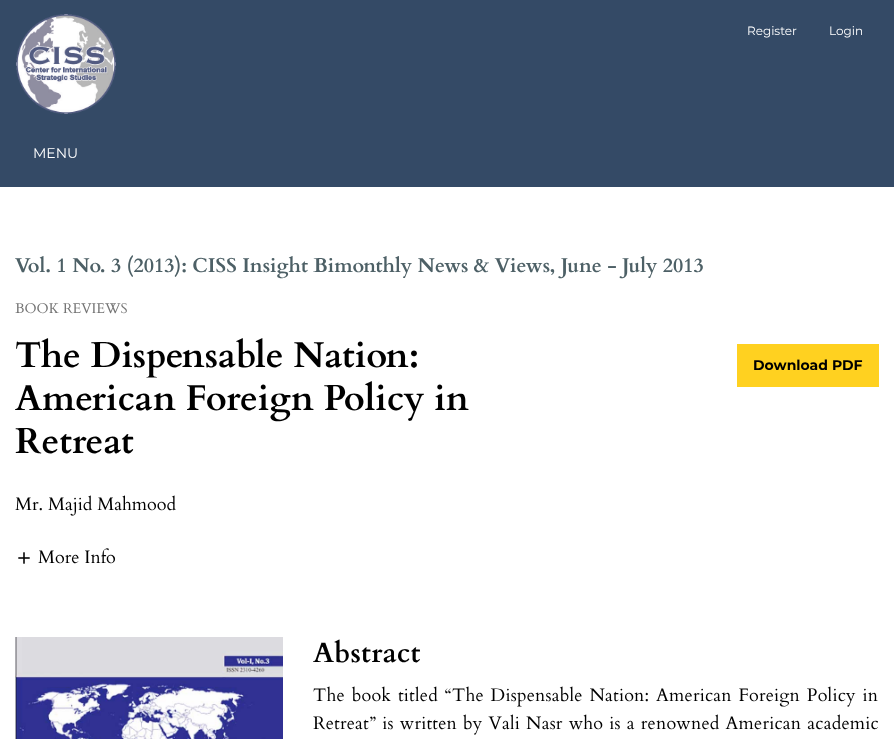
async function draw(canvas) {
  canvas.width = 894;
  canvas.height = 739;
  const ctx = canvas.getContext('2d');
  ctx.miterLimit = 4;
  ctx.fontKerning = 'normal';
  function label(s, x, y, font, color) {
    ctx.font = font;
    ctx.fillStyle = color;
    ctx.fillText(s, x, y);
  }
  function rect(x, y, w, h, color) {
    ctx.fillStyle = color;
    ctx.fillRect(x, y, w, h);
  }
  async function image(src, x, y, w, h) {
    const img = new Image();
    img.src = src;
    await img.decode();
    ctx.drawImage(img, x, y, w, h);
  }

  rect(0, 0, 894, 739, '#fff');
  rect(0, 0, 894, 187, '#344a66');
  await image('assets/img1.png', 16, 14, 100, 100);
  label('Register', 747, 35, '12px Montserrat', '#fff');
  label('Login', 829, 35, '12px Montserrat', '#fff');
  label('MENU', 33, 158, '14px Montserrat', '#fff');
  label('Vol. 1 No. 3 (2013): CISS Insight Bimonthly News & Views, June - July 2013', 15, 272, 'bold 20px Cardo', '#4d6066');
  label('BOOK REVIEWS', 15, 313, '14px Cardo', '#757575');
  label('The Dispensable Nation:', 15, 367, 'bold 36px Cardo', '#000');
  label('American Foreign Policy in', 15, 410, 'bold 36px Cardo', '#000');
  label('Retreat', 15, 453, 'bold 36px Cardo', '#000');
  rect(737, 344, 142, 43, '#ffd120');
  label('Download PDF', 753, 370, 'bold 14px Montserrat', '#000');
  label('Mr. Majid Mahmood', 15, 510, '18px Cardo', '#000');
  await image('assets/img2.png', 18, 552, 12, 12);
  label('More Info', 38, 563, '18px Cardo', '#000');
  await image('assets/img3.png', 15, 637, 268, 102);
  ctx.letterSpacing = '0.2px';
  label('Abstract', 313, 662, 'bold 28px Cardo', '#000');
  ctx.wordSpacing = '1.75px';
  label('The book titled “The Dispensable Nation: American Foreign Policy in', 313, 701, '18px Cardo', '#000');
  ctx.wordSpacing = '1px';
  label('Retreat” is written by Vali Nasr who is a renowned American academic', 313, 729, '18px Cardo', '#000');
}

draw(document.querySelector('canvas'));
